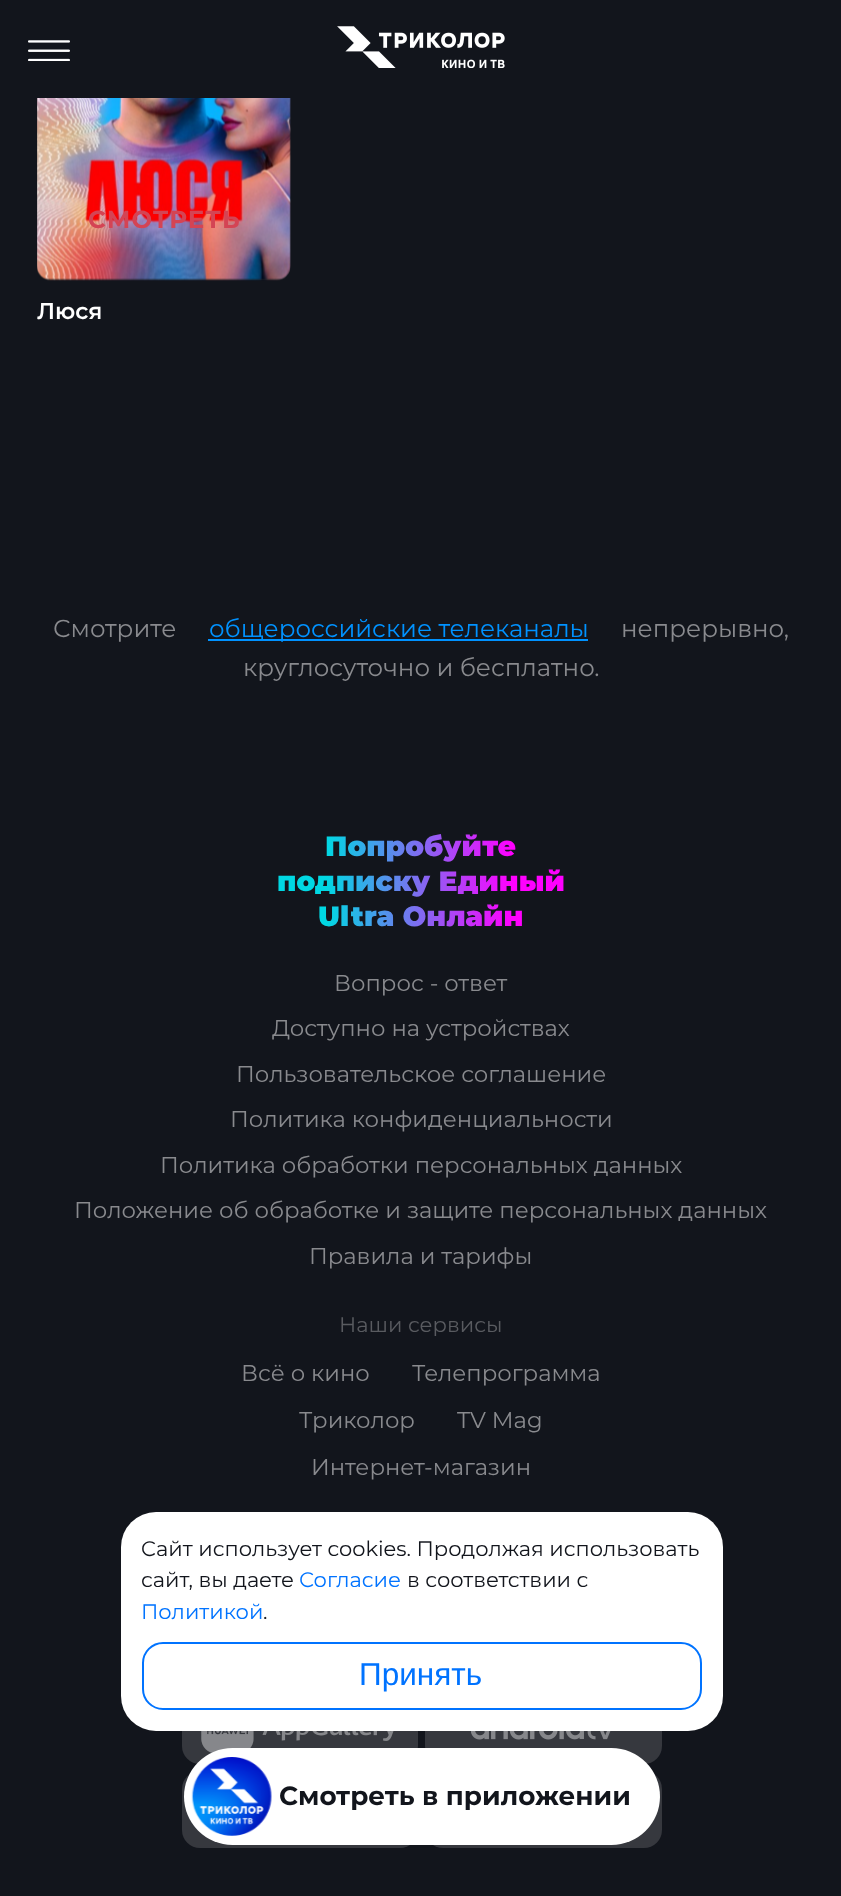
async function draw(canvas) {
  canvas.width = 841;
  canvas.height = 1896;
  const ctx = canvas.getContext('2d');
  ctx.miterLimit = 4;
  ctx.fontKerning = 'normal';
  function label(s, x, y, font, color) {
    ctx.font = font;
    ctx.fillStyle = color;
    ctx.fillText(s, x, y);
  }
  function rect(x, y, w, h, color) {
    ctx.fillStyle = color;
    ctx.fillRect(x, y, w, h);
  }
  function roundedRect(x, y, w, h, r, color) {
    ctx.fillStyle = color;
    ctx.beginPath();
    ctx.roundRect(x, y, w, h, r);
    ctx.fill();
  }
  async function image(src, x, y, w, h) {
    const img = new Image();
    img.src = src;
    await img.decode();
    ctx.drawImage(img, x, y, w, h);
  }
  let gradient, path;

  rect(0, 0, 841, 1896, '#12151c');
  ctx.fillStyle = '#1e2127';
  path = new Path2D('M51-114C43-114 37-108 37-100V266C37 274 43 280 51 280H277C283 280 288 276 290 271V-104C289-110 283-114 277-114Z');
  ctx.fill(path);
  rect(37, 0, 253, 98, '#12151c');
  await image('assets/img1.png', 28, 40, 42, 21);
  await image('assets/img2.png', 337, 26, 168, 42);
  await image('assets/img3.png', 289, 98, 2, 170);
  await image('assets/img4.png', 37, 98, 254, 183);
  ctx.letterSpacing = '1px';
  label('СМОТРЕТЬ', 88, 228, 'bold 24.5px Montserrat', '#d44454');
  ctx.letterSpacing = '0px';
  label('Люся', 37, 319, '600 22.75px Montserrat', '#fff');
  label('Смотрите', 53, 637, '24.5px Montserrat', '#898a8e');
  rect(208, 639, 380, 2, '#0092ff');
  label('общероссийские телеканалы', 209, 637, '24.5px Montserrat', '#0092ff');
  label('непрерывно,', 621, 637, '24.5px Montserrat', '#898a8e');
  label('круглосуточно и бесплатно.', 243, 676, '24.5px Montserrat', '#898a8e');
  ctx.font = '900 28px Montserrat';
  gradient = ctx.createLinearGradient(263, 847, 578, 847);
  gradient.addColorStop(0.2, '#00d8e3');
  gradient.addColorStop(0.79, '#f0f');
  ctx.fillStyle = gradient;
  ctx.fillText('Попробуйте', 325, 856);
  gradient = ctx.createLinearGradient(263, 882, 578, 882);
  gradient.addColorStop(0.2, '#00d8e3');
  gradient.addColorStop(0.79, '#f0f');
  ctx.fillStyle = gradient;
  ctx.fillText('подписку Единый', 277, 891);
  gradient = ctx.createLinearGradient(263, 917, 578, 917);
  gradient.addColorStop(0.2, '#00d8e3');
  gradient.addColorStop(0.79, '#f0f');
  ctx.fillStyle = gradient;
  ctx.fillText('Ultra Онлайн', 318, 926);
  label('Вопрос - ответ', 334, 991, '22.75px Montserrat', '#898a8e');
  label('Доступно на устройствах', 272, 1036, '22.75px Montserrat', '#898a8e');
  label('Пользовательское соглашение', 236, 1082, '22.75px Montserrat', '#898a8e');
  label('Политика конфиденциальности', 230, 1127, '22.75px Montserrat', '#898a8e');
  label('Политика обработки персональных данных', 160, 1173, '22.75px Montserrat', '#898a8e');
  label('Положение об обработке и защите персональных данных', 74, 1218, '22.75px Montserrat', '#898a8e');
  label('Правила и тарифы', 309, 1264, '22.75px Montserrat', '#898a8e');
  label('Наши сервисы', 339, 1332, '21px Montserrat', '#595b60');
  label('Всё о кино', 241, 1381, '22.75px Montserrat', '#898a8e');
  label('Телепрограмма', 412, 1381, '22.75px Montserrat', '#898a8e');
  label('Триколор', 299, 1428, '22.75px Montserrat', '#898a8e');
  label('TV Mag', 457, 1428, '22.75px Montserrat', '#898a8e');
  label('Интернет-магазин', 311, 1475, '22.75px Montserrat', '#898a8e');
  roundedRect(182, 1687, 236, 77, 18, '#36383e');
  await image('assets/img5.png', 201, 1731, 193, 22);
  roundedRect(425, 1687, 237, 77, 18, '#36383e');
  await image('assets/img6.png', 471, 1731, 140, 9);
  roundedRect(182, 1771, 236, 77, 18, '#36383e');
  roundedRect(425, 1771, 237, 77, 18, '#36383e');
  roundedRect(184, 1748, 476, 97, 48.5, '#fff');
  await image('assets/img7.png', 191, 1757, 81, 79);
  label('Смотреть в приложении', 279, 1805, 'bold 26.25px Montserrat', '#12151c');
  roundedRect(121, 1512, 602, 219, 35, '#fff');
  label('Cайт использует cookies. Продолжая использовать', 141, 1556, '21px Montserrat', '#12151c');
  label('сайт, вы даете', 141, 1587, '21px Montserrat', '#12151c');
  label('Согласие', 299, 1587, '21px Montserrat', '#0073ff');
  label('в соответствии с', 407, 1587, '21px Montserrat', '#12151c');
  label('Политикой', 141, 1619, '21px Montserrat', '#0073ff');
  label('.', 263, 1619, '21px Montserrat', '#12151c');
  ctx.beginPath();
  ctx.roundRect(143, 1643, 558, 66, 20);
  ctx.strokeStyle = '#0073ff';
  ctx.lineWidth = 2;
  ctx.stroke();
  label('Принять', 359, 1685, '31.5px Liberation Sans', '#0073ff');
}

draw(document.querySelector('canvas'));
